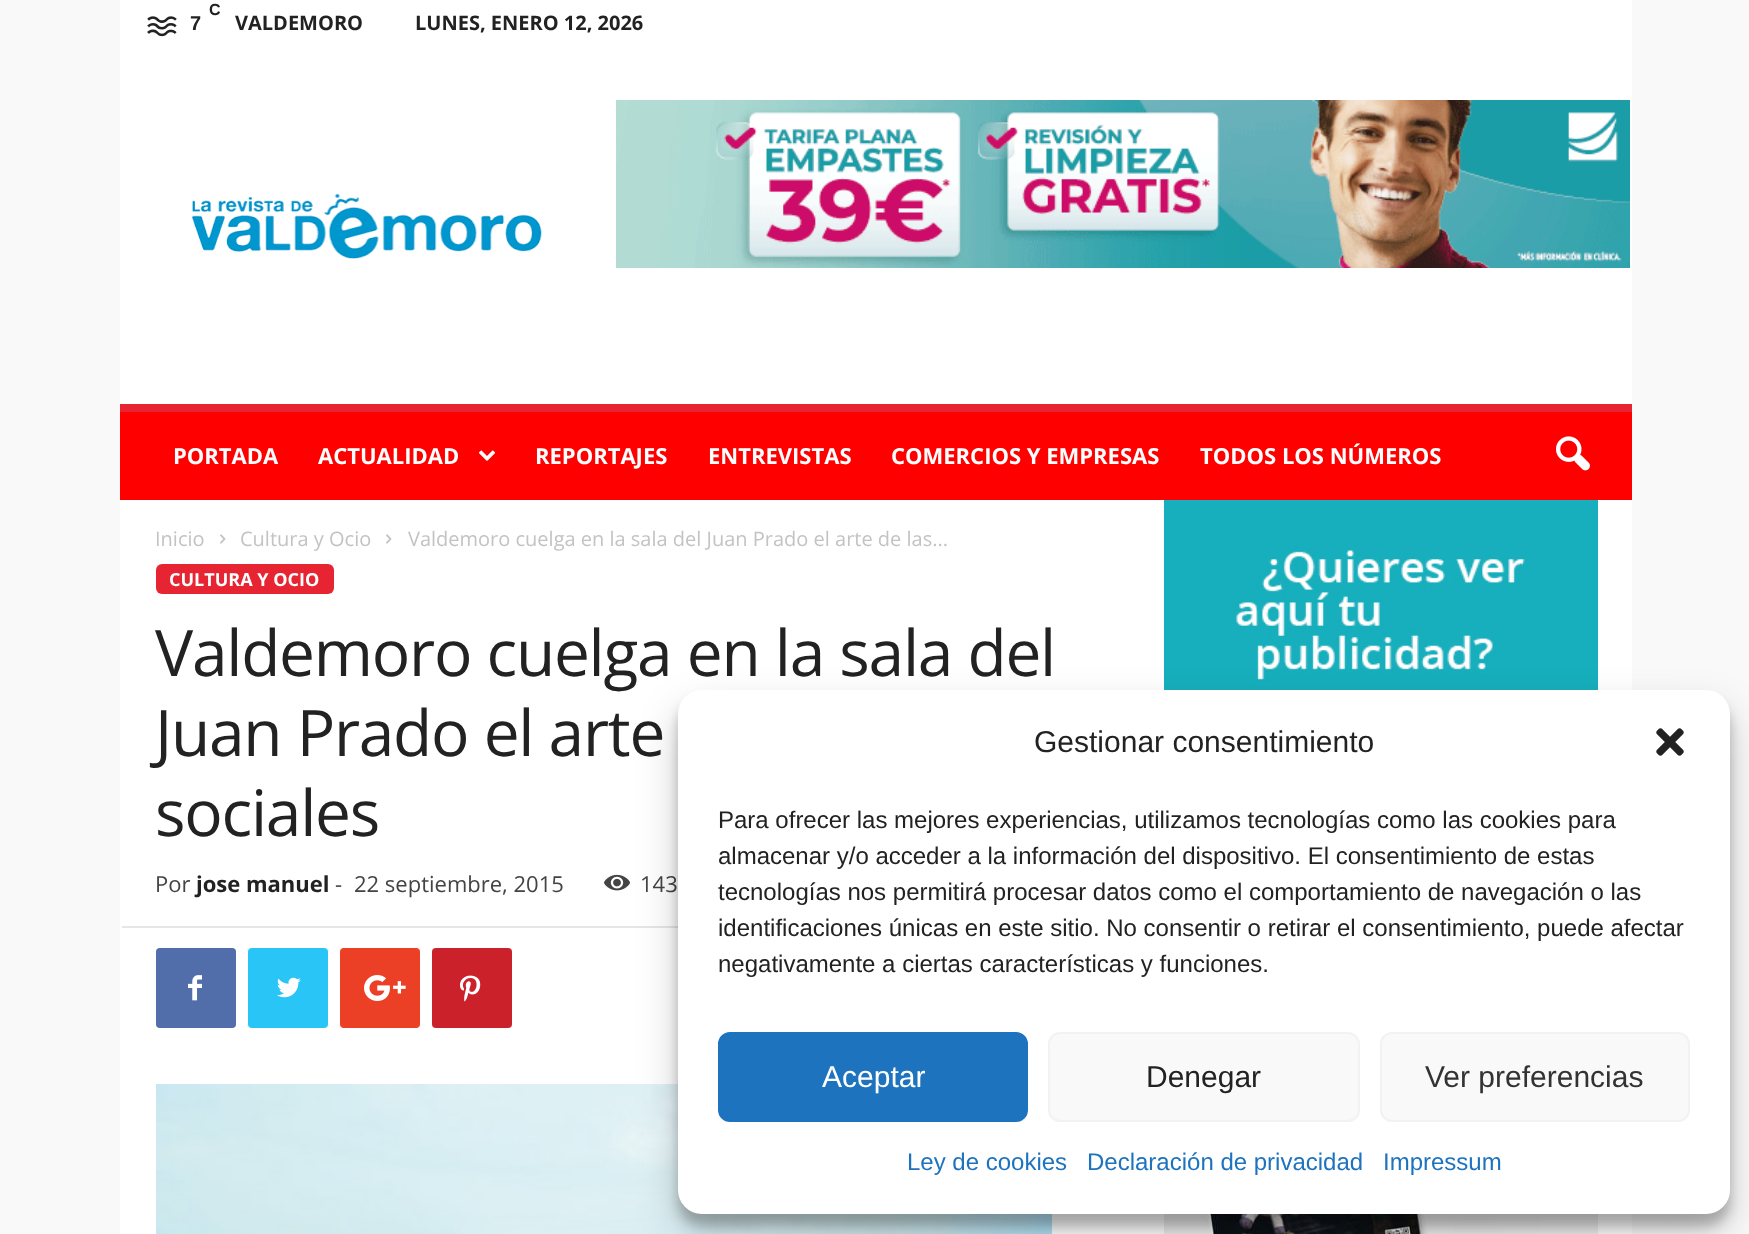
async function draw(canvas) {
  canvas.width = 1749;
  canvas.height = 1234;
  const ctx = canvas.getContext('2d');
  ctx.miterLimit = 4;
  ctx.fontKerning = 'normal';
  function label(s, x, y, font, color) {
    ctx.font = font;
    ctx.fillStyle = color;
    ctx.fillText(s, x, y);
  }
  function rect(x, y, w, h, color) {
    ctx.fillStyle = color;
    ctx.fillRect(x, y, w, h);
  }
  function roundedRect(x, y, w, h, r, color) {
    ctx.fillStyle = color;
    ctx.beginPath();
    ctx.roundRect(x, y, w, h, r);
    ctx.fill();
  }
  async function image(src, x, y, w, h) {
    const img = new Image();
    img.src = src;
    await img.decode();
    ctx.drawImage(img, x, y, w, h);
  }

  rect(0, 0, 1749, 1234, '#f9f9f9');
  rect(120, 0, 1512, 404, '#fff');
  await image('assets/img1.png', 191, 193, 351, 66);
  await image('assets/img2.png', 616, 100, 1014, 168);
  await image('assets/img3.png', 147, 16, 30, 21);
  label('C', 209, 15, 'bold 16px Liberation Sans', '#222');
  label('7', 190, 30, 'bold 20px Liberation Sans', '#222');
  label('VALDEMORO', 235, 30, 'bold 20px Open Sans', '#222');
  label('LUNES, ENERO 12, 2026', 415, 30, 'bold 20px Open Sans', '#222');
  rect(120, 412, 1512, 88, '#f00');
  rect(120, 404, 1512, 8, '#e72532');
  label('PORTADA', 173, 464, 'bold 22px Open Sans', '#fff');
  label('ACTUALIDAD', 318, 464, 'bold 22px Open Sans', '#fff');
  await image('assets/img4.png', 478, 450, 18, 11);
  label('REPORTAJES', 535, 464, 'bold 22px Open Sans', '#fff');
  label('ENTREVISTAS', 708, 464, 'bold 22px Open Sans', '#fff');
  label('COMERCIOS Y EMPRESAS', 891, 464, 'bold 22px Open Sans', '#fff');
  label('TODOS LOS NÚMEROS', 1200, 464, 'bold 22px Open Sans', '#fff');
  await image('assets/img5.png', 1556, 436, 34, 35);
  rect(120, 500, 1512, 734, '#fff');
  label('Inicio', 155, 546, '20px Open Sans', '#c3c3c3');
  await image('assets/img6.png', 220, 534, 6, 10);
  label('Cultura y Ocio', 240, 546, '20px Open Sans', '#c3c3c3');
  await image('assets/img6.png', 386, 534, 6, 10);
  label('Valdemoro cuelga en la sala del Juan Prado el arte de las...', 408, 546, '20px Open Sans', '#c3c3c3');
  roundedRect(156, 564, 178, 30, 6, '#e72532');
  label('CULTURA Y OCIO', 169, 586, 'bold 18px Open Sans', '#fff');
  ctx.letterSpacing = '-1.25px';
  label('Valdemoro cuelga en la sala del', 155, 676, '64px Open Sans', '#222');
  label('Juan Prado el arte', 155, 756, '64px Open Sans', '#222');
  label('sociales', 155, 836, '64px Open Sans', '#222');
  ctx.letterSpacing = '0px';
  label('Por', 155, 892, '22px Open Sans', '#444');
  label('jose manuel', 196, 892, 'bold 22px Open Sans', '#222');
  label('-', 335, 892, '22px Open Sans', '#444');
  label('22 septiembre, 2015', 354, 892, '22px Open Sans', '#444');
  await image('assets/img7.png', 604, 874, 26, 17);
  label('143', 640, 892, '22px Open Sans', '#444');
  rect(122, 926, 556, 2, '#e6e6e6');
  roundedRect(156, 948, 80, 80, 4, '#516eab');
  await image('assets/img8.png', 188, 975, 14, 26);
  roundedRect(248, 948, 80, 80, 4, '#29c5f6');
  await image('assets/img9.png', 277, 977, 24, 21);
  roundedRect(340, 948, 80, 80, 4, '#eb4026');
  await image('assets/img10.png', 364, 975, 42, 26);
  roundedRect(432, 948, 80, 80, 4, '#ca212a');
  await image('assets/img11.png', 460, 975, 21, 27);
  await image('assets/img12.png', 156, 1084, 896, 150);
  await image('assets/img13.png', 1164, 500, 434, 190);
  await image('assets/img14.png', 1164, 1214, 434, 20);
  ctx.fillStyle = '#0000003b';
  ctx.filter = 'blur(6px)';
  ctx.beginPath();
  ctx.roundRect(678, 702, 1052, 524, 24);
  ctx.fill();
  ctx.filter = 'none';
  ctx.fillStyle = '#00000030';
  ctx.filter = 'blur(20px)';
  ctx.beginPath();
  ctx.roundRect(678, 710, 1052, 524, 24);
  ctx.fill();
  ctx.filter = 'none';
  roundedRect(678, 690, 1052, 524, 24, '#fff');
  label('Gestionar consentimiento', 1034, 752, '30px Liberation Sans', '#222');
  await image('assets/img15.png', 1656, 728, 28, 28);
  label('Para ofrecer las mejores experiencias, utilizamos tecnologías como las cookies para', 718, 828, '24px Liberation Sans', '#222');
  label('almacenar y/o acceder a la información del dispositivo. El consentimiento de estas', 718, 864, '24px Liberation Sans', '#222');
  label('tecnologías nos permitirá procesar datos como el comportamiento de navegación o las', 718, 900, '24px Liberation Sans', '#222');
  label('identificaciones únicas en este sitio. No consentir o retirar el consentimiento, puede afectar', 718, 936, '24px Liberation Sans', '#222');
  label('negativamente a ciertas características y funciones.', 718, 972, '24px Liberation Sans', '#222');
  ctx.fillStyle = '#1e73be';
  ctx.beginPath();
  ctx.roundRect(719, 1033, 308, 88, 11);
  ctx.fill();
  ctx.strokeStyle = '#1e73be';
  ctx.lineWidth = 2;
  ctx.stroke();
  label('Aceptar', 822, 1087, '30px Liberation Sans', '#fff');
  ctx.fillStyle = '#f9f9f9';
  ctx.beginPath();
  ctx.roundRect(1049, 1033, 310, 88, 11);
  ctx.fill();
  ctx.strokeStyle = '#f2f2f2';
  ctx.stroke();
  label('Denegar', 1146, 1087, '30px Liberation Sans', '#222');
  ctx.fillStyle = '#f9f9f9';
  ctx.beginPath();
  ctx.roundRect(1381, 1033, 308, 88, 11);
  ctx.fill();
  ctx.stroke();
  label('Ver preferencias', 1425, 1087, '30px Liberation Sans', '#333');
  label('Ley de cookies', 907, 1170, '24px Liberation Sans', '#1e73be');
  label('Declaración de privacidad', 1087, 1170, '24px Liberation Sans', '#1e73be');
  label('Impressum', 1383, 1170, '24px Liberation Sans', '#1e73be');
}

draw(document.querySelector('canvas'));
